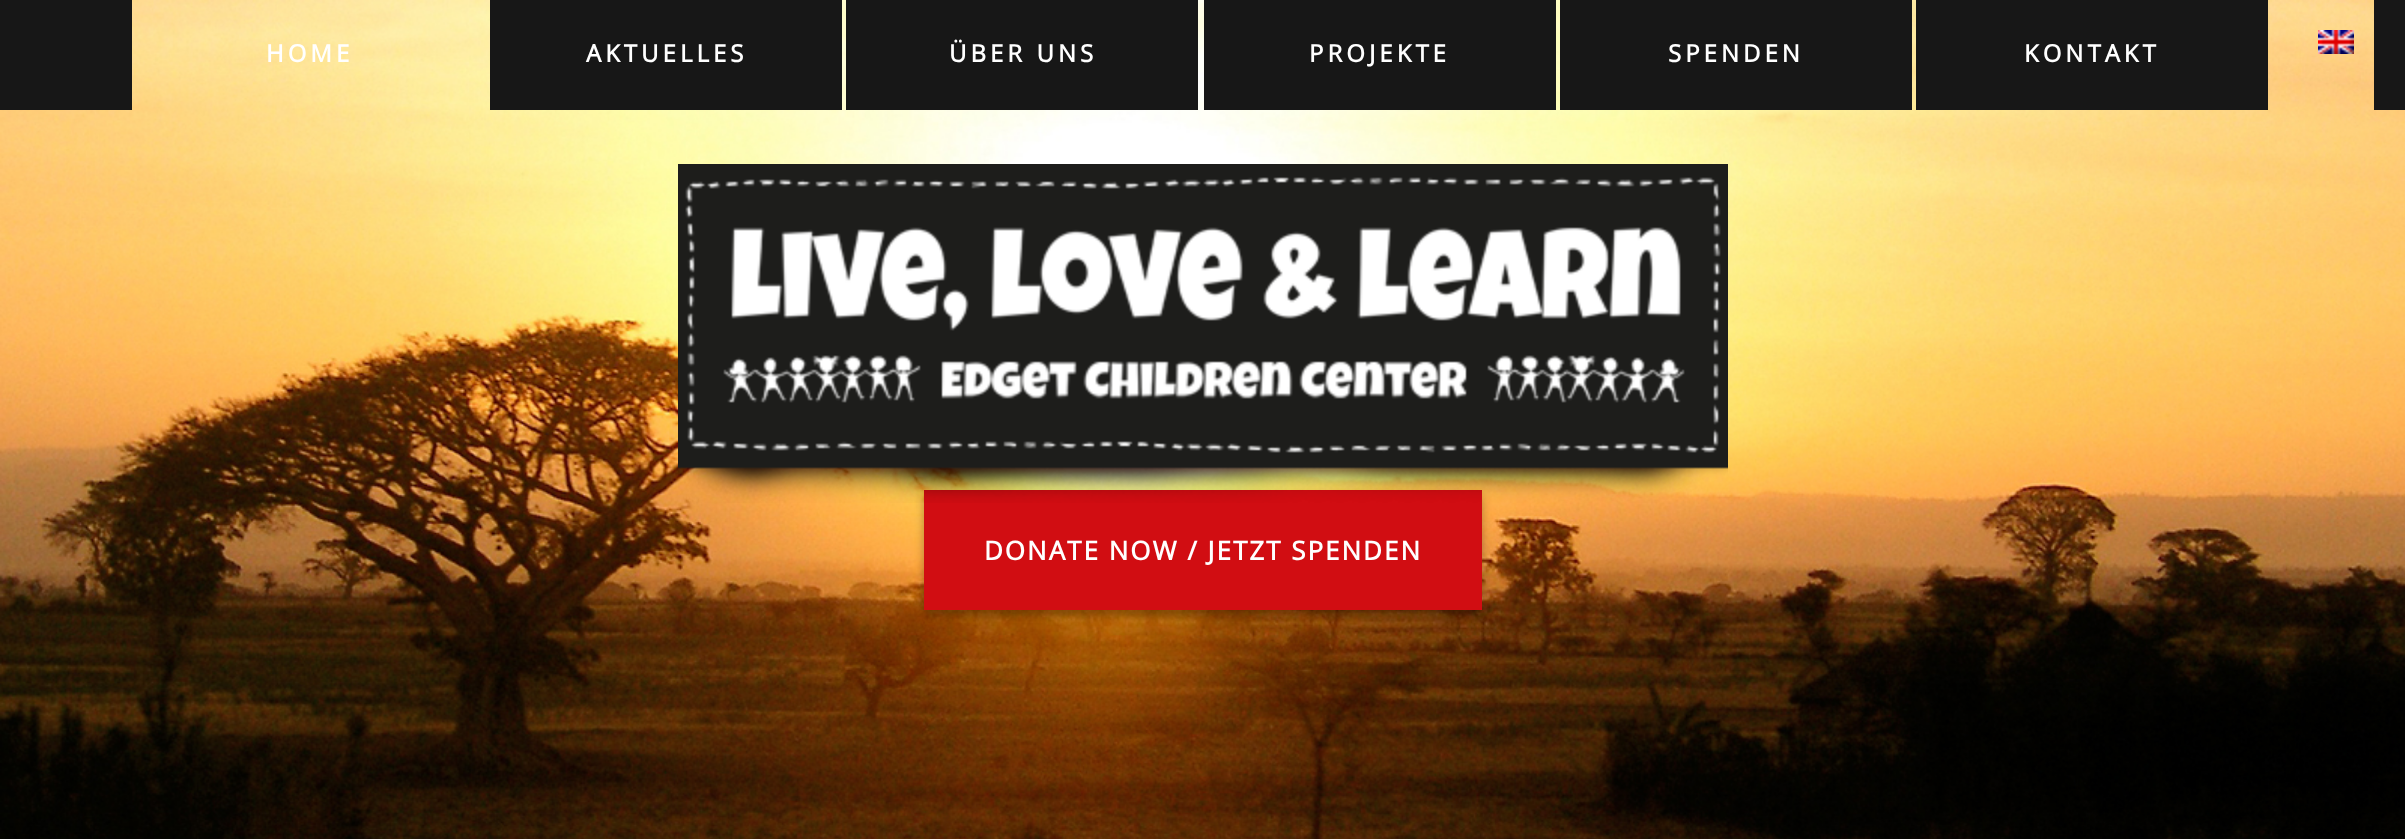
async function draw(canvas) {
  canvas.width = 2405;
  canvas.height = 839;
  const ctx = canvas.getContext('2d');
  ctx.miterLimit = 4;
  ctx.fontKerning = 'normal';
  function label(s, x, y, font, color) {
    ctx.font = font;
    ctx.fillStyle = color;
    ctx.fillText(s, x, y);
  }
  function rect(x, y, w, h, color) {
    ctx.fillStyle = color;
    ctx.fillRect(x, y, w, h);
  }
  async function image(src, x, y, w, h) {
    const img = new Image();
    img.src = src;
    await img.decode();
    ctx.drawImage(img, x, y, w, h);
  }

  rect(0, 0, 2405, 839, '#fff');
  await image('assets/img4.png', 0, 0, 2405, 839);
  rect(0, 0, 132, 110, '#171717');
  ctx.letterSpacing = '4px';
  label('HOME', 266, 62, 'bold 24px Open Sans', '#fff');
  rect(490, 0, 352, 110, '#171717');
  label('AKTUELLES', 586, 62, 'bold 24px Open Sans', '#fff');
  rect(846, 0, 352, 110, '#171717');
  label('ÜBER UNS', 949, 62, 'bold 24px Open Sans', '#fff');
  rect(1204, 0, 352, 110, '#171717');
  label('PROJEKTE', 1309, 62, 'bold 24px Open Sans', '#fff');
  rect(1560, 0, 352, 110, '#171717');
  label('SPENDEN', 1668, 62, 'bold 24px Open Sans', '#fff');
  rect(1916, 0, 352, 110, '#171717');
  label('KONTAKT', 2024, 62, 'bold 24px Open Sans', '#fff');
  rect(2374, 0, 31, 110, '#171717');
  await image('assets/img1.png', 2318, 30, 36, 24);
  ctx.fillStyle = '#0000004d';
  ctx.filter = 'blur(5px)';
  ctx.beginPath();
  ctx.rect(924, 496, 558, 120);
  ctx.fill();
  ctx.filter = 'none';
  rect(924, 490, 558, 120, '#d10d12');
  await image('assets/img2.png', 678, 164, 1050, 339);
  await image('assets/img3.png', 685, 177, 1036, 276);
  ctx.letterSpacing = '2px';
  label('DONATE NOW / JETZT SPENDEN', 984, 560, 'bold 26px Open Sans', '#fff');
}

draw(document.querySelector('canvas'));
